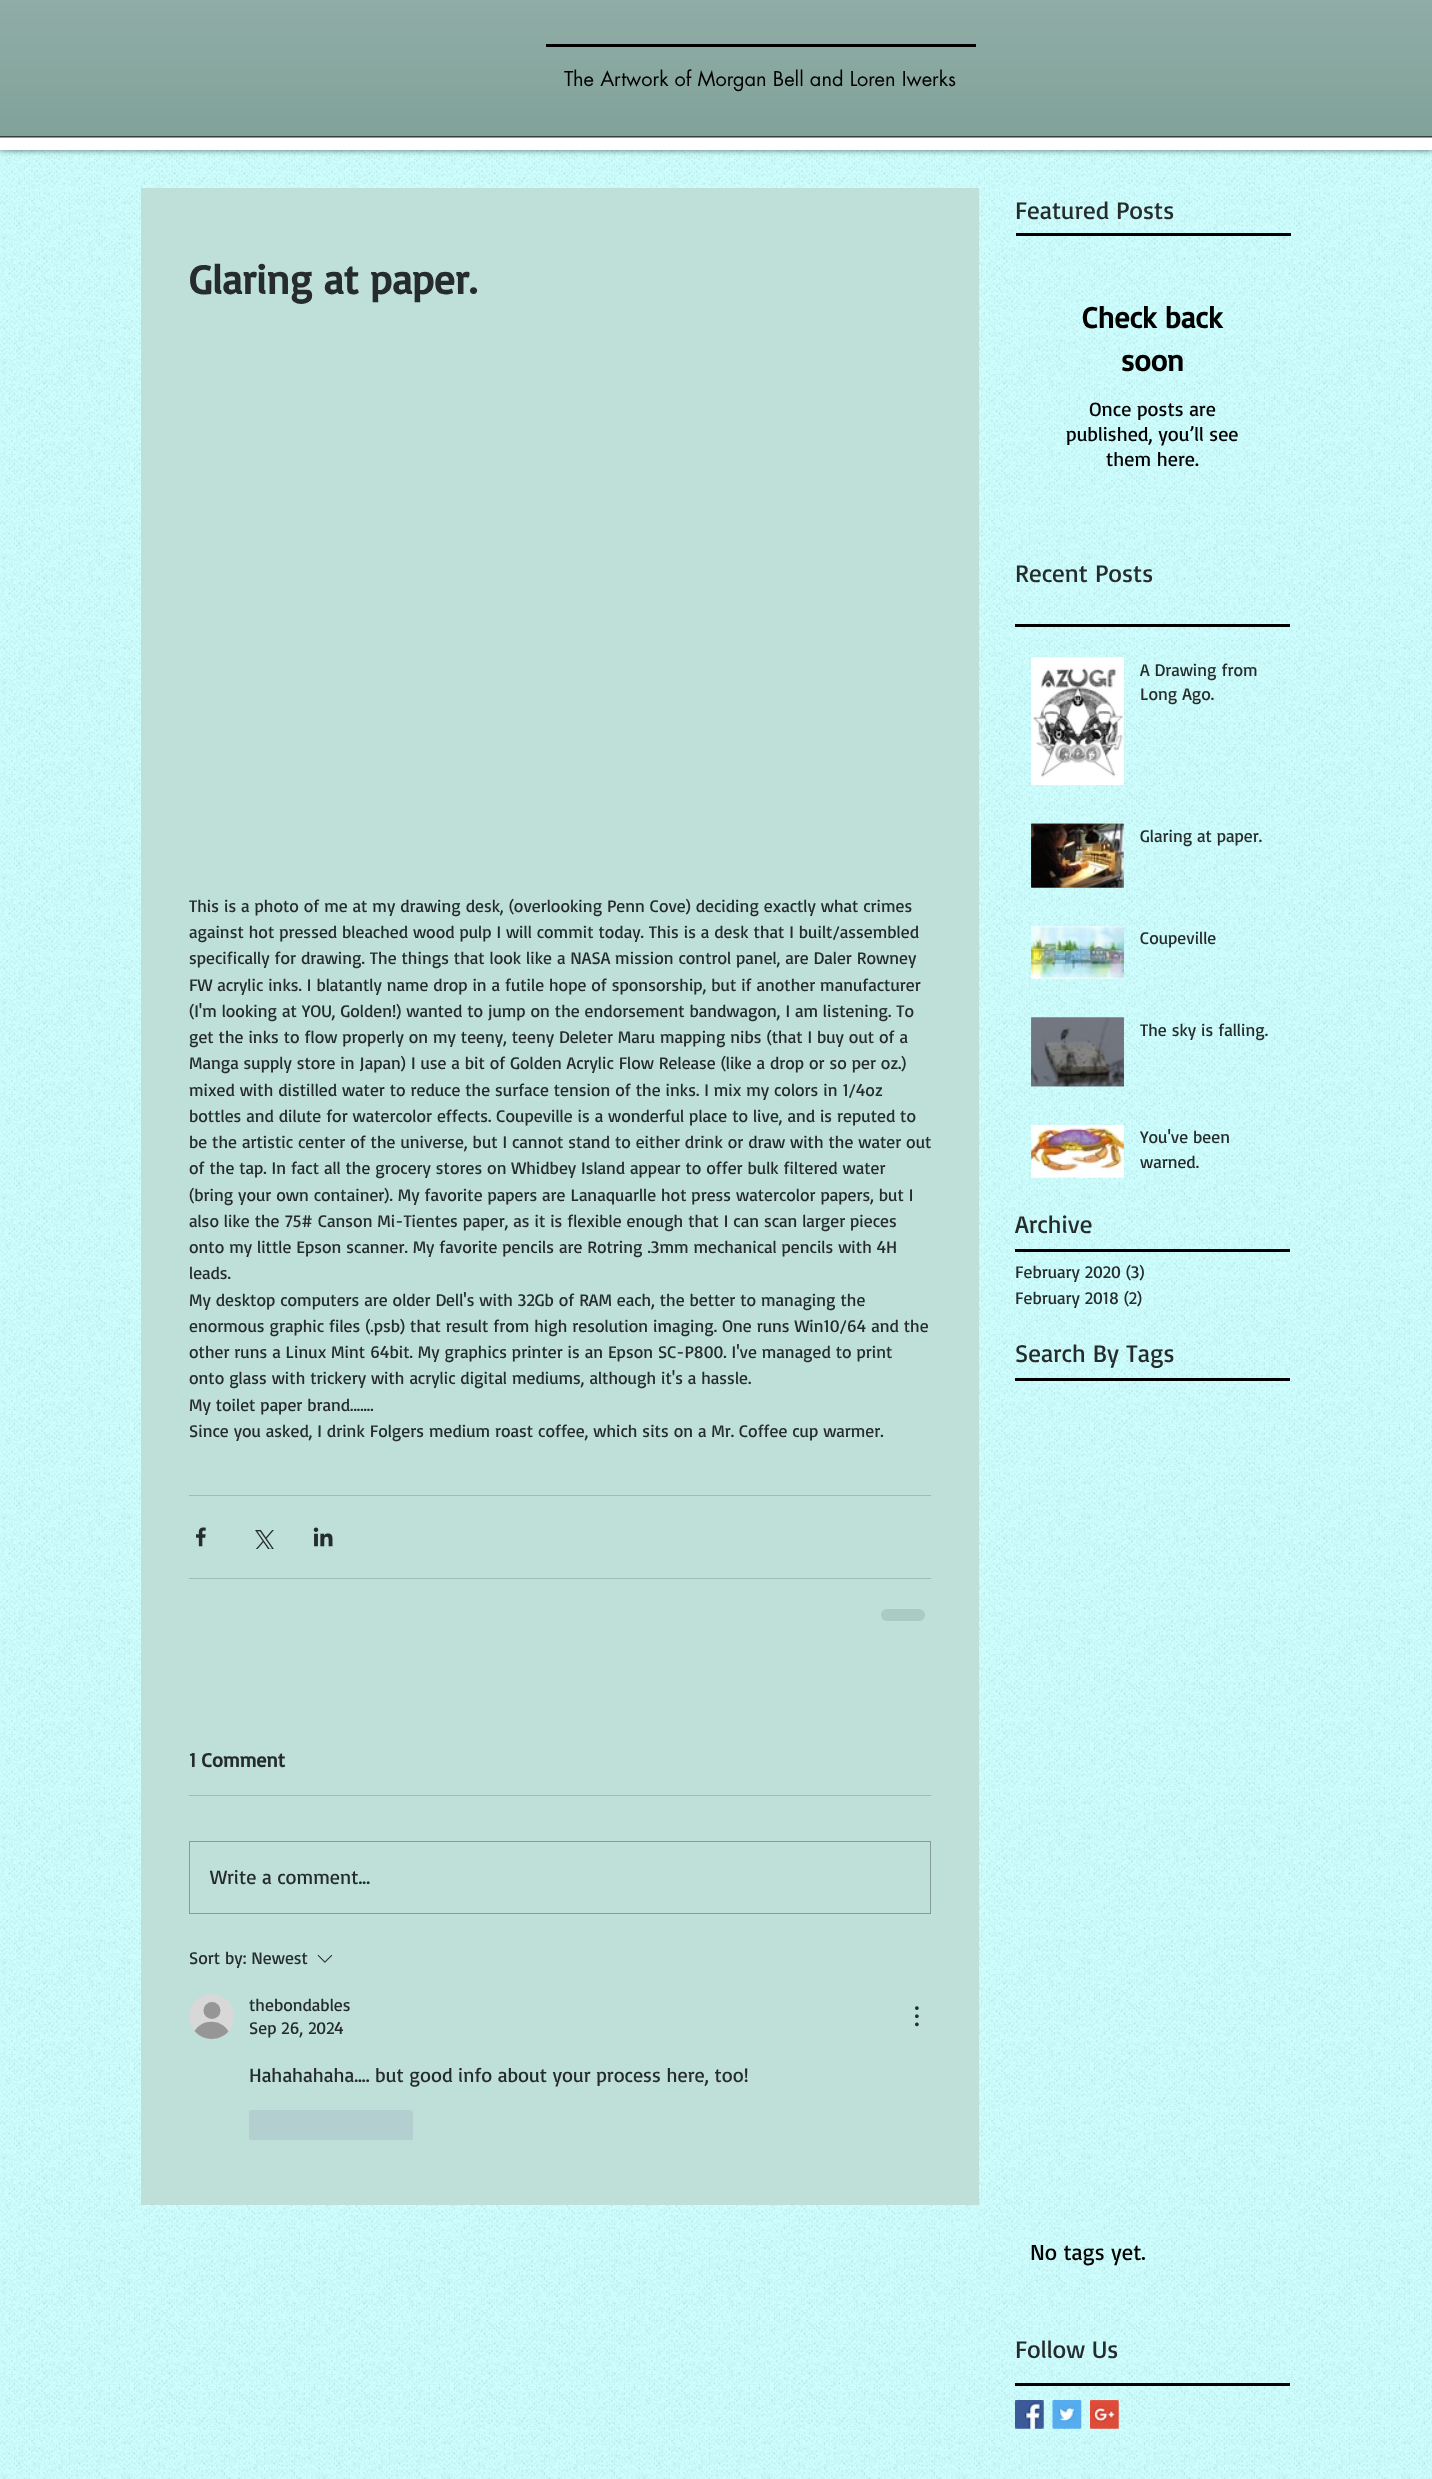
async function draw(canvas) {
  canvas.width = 1432;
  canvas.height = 2479;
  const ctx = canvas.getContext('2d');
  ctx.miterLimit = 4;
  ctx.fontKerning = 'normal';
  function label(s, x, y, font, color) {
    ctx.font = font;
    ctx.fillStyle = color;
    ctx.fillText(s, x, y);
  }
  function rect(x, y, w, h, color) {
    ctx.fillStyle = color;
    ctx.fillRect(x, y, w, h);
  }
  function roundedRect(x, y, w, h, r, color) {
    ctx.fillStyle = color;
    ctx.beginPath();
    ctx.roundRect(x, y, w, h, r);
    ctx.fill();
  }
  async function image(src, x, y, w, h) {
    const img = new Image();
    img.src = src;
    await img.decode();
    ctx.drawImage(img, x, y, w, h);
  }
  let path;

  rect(0, 0, 1432, 2479, '#cfffff');
  await image('assets/img20.png', 0, 150, 1432, 2329);
  ctx.fillStyle = '#00000099';
  ctx.filter = 'blur(3px)';
  ctx.beginPath();
  ctx.rect(0, -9, 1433, 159);
  ctx.fill();
  ctx.filter = 'none';
  rect(0, 0, 1432, 138, '#749990');
  await image('assets/img1.png', 0, 0, 1432, 138);
  rect(0, 136, 1432, 1, '#34413e');
  rect(0, 138, 1432, 12, '#fff');
  rect(546, 44, 430, 3, '#000');
  label('The Artwork of Morgan Bell and Loren Iwerks', 564, 86, '20px futura', '#000');
  label('Featured Posts', 1015, 219, '25px Basic', '#262c2b');
  rect(1016, 233, 275, 3, '#000');
  rect(141, 188, 838, 2017, '#bee0d9');
  label('Glaring at paper.', 189, 294, 'bold 41.25px Basic', '#262c2b');
  label('This is a photo of me at my drawing desk, (overlooking Penn Cove) deciding exactly what crimes', 189, 912, '17.5px Basic', '#262c2b');
  label('against hot pressed bleached wood pulp I will commit today. This is a desk that I built/assembled', 189, 938, '17.5px Basic', '#262c2b');
  label('specifically for drawing. The things that look like a NASA mission control panel, are Daler Rowney', 189, 964, '17.5px Basic', '#262c2b');
  label('FW acrylic inks. I blatantly name drop in a futile hope of sponsorship, but if another manufacturer', 189, 991, '17.5px Basic', '#262c2b');
  label('(I\'m looking at YOU, Golden!) wanted to jump on the endorsement bandwagon, I am listening. To', 189, 1017, '17.5px Basic', '#262c2b');
  label('get the inks to flow properly on my teeny, teeny Deleter Maru mapping nibs (that I buy out of a', 189, 1043, '17.5px Basic', '#262c2b');
  label('Manga supply store in Japan) I use a bit of Golden Acrylic Flow Release (like a drop or so per oz.)', 189, 1069, '17.5px Basic', '#262c2b');
  label('mixed with distilled water to reduce the surface tension of the inks. I mix my colors in 1/4oz', 189, 1096, '17.5px Basic', '#262c2b');
  label('bottles and dilute for watercolor effects. Coupeville is a wonderful place to live, and is reputed to', 189, 1122, '17.5px Basic', '#262c2b');
  label('be the artistic center of the universe, but I cannot stand to either drink or draw with the water out', 189, 1148, '17.5px Basic', '#262c2b');
  label('of the tap. In fact all the grocery stores on Whidbey Island appear to offer bulk filtered water', 189, 1174, '17.5px Basic', '#262c2b');
  label('(bring your own container). My favorite papers are Lanaquarlle hot press watercolor papers, but I', 189, 1201, '17.5px Basic', '#262c2b');
  label('also like the 75# Canson Mi-Tientes paper, as it is flexible enough that I can scan larger pieces', 189, 1227, '17.5px Basic', '#262c2b');
  label('onto my little Epson scanner. My favorite pencils are Rotring .3mm mechanical pencils with 4H', 189, 1253, '17.5px Basic', '#262c2b');
  label('leads.', 189, 1279, '17.5px Basic', '#262c2b');
  label('My desktop computers are older Dell\'s with 32Gb of RAM each, the better to managing the', 189, 1306, '17.5px Basic', '#262c2b');
  label('enormous graphic files (.psb) that result from high resolution imaging. One runs Win10/64 and the', 189, 1332, '17.5px Basic', '#262c2b');
  label('other runs a Linux Mint 64bit. My graphics printer is an Epson SC-P800. I\'ve managed to print', 189, 1358, '17.5px Basic', '#262c2b');
  label('onto glass with trickery with acrylic digital mediums, although it\'s a hassle.', 189, 1384, '17.5px Basic', '#262c2b');
  label('My toilet paper brand.......', 189, 1411, '17.5px Basic', '#262c2b');
  label('Since you asked, I drink Folgers medium roast coffee, which sits on a Mr. Coffee cup warmer.', 189, 1437, '17.5px Basic', '#262c2b');
  rect(189, 1495, 742, 1, '#a0bcb6');
  await image('assets/img2.png', 196, 1527, 10, 20);
  await image('assets/img3.png', 255, 1530, 19, 19);
  await image('assets/img4.png', 313, 1527, 20, 20);
  rect(189, 1578, 742, 1, '#a0bcb6');
  roundedRect(881, 1609, 44, 12, 6, '#accac4');
  label('1 Comment', 189, 1767, 'bold 20px Basic', '#262c2b');
  rect(189, 1795, 742, 1, '#a0bcb6');
  ctx.strokeStyle = '#859d98';
  ctx.strokeRect(189.5, 1841.5, 741, 72);
  label('Write a comment...', 210, 1884, '20px Basic', '#262c2b');
  label('Sort by: Newest', 189, 1964, '17.5px Basic', '#262c2b');
  await image('assets/img5.png', 317, 1954, 16, 9);
  ctx.fillStyle = '#d8d8d8';
  ctx.beginPath();
  ctx.arc(211.5, 2016.5, 22.5, 0, 2 * Math.PI);
  ctx.fill();
  ctx.fillStyle = '#969696';
  ctx.beginPath();
  ctx.arc(212, 2010.5, 8.5, 0, 2 * Math.PI);
  ctx.fill();
  path = new Path2D('M228.5 2031.5C219.5 2041.5 203 2041.5 194.5 2031C202 2018.5 221 2018.5 228.5 2031.5Z');
  ctx.fill(path);
  label('thebondables', 249, 2011, '17.5px Basic', '#262c2b');
  label('Sep 26, 2024', 249, 2034, '17.5px Basic', '#262c2b');
  await image('assets/img6.png', 915, 2006, 4, 21);
  label('Hahahahaha.... but good info about your process here, too!', 249, 2082, '20px Basic', '#262c2b');
  roundedRect(249, 2110, 164, 30, 2.5, '#b3cfcf');
  label('Check back', 1082, 328, 'bold 30px Basic', '#000');
  label('soon', 1121, 371, 'bold 30px Basic', '#000');
  label('Once posts are', 1089, 416, '20px Basic', '#000');
  label('published, you’ll see', 1066, 441, '20px Basic', '#000');
  label('them here.', 1106, 466, '20px Basic', '#000');
  label('Recent Posts', 1015, 582, '25px Basic', '#262c2b');
  rect(1015, 624, 275, 3, '#000');
  await image('assets/img7.png', 1031, 657, 93, 128);
  await image('assets/img8.png', 1031, 657, 93, 128);
  label('A Drawing from', 1140, 676, '17.5px Basic', '#262c2b');
  label('Long Ago.', 1140, 700, '17.5px Basic', '#262c2b');
  await image('assets/img9.png', 1031, 823, 93, 65);
  await image('assets/img10.png', 1031, 823, 93, 65);
  label('Glaring at paper.', 1140, 842, '17.5px Basic', '#262c2b');
  await image('assets/img11.png', 1031, 926, 93, 53);
  await image('assets/img12.png', 1031, 926, 93, 53);
  label('Coupeville', 1140, 944, '17.5px Basic', '#262c2b');
  await image('assets/img13.png', 1031, 1017, 93, 70);
  await image('assets/img14.png', 1031, 1017, 93, 70);
  label('The sky is falling.', 1140, 1036, '17.5px Basic', '#262c2b');
  await image('assets/img15.png', 1031, 1125, 93, 53);
  await image('assets/img16.png', 1031, 1125, 93, 53);
  label('You\'ve been', 1140, 1143, '17.5px Basic', '#262c2b');
  label('warned.', 1140, 1168, '17.5px Basic', '#262c2b');
  label('Archive', 1015, 1233, '25px Basic', '#262c2b');
  rect(1015, 1249, 275, 3, '#000');
  label('February 2020 (3)', 1015, 1278, '17.5px Basic', '#262c2b');
  label('February 2018 (2)', 1015, 1304, '17.5px Basic', '#262c2b');
  label('Search By Tags', 1015, 1362, '25px Basic', '#262c2b');
  rect(1015, 1378, 275, 3, '#000');
  label('No tags yet.', 1030, 2260, '22.5px Basic', '#000');
  label('Follow Us', 1015, 2358, '25px Basic', '#262c2b');
  rect(1015, 2383, 275, 3, '#000');
  await image('assets/img17.png', 1015, 2400, 29, 29);
  await image('assets/img18.png', 1052, 2400, 30, 29);
  await image('assets/img19.png', 1090, 2400, 29, 29);
}

draw(document.querySelector('canvas'));
